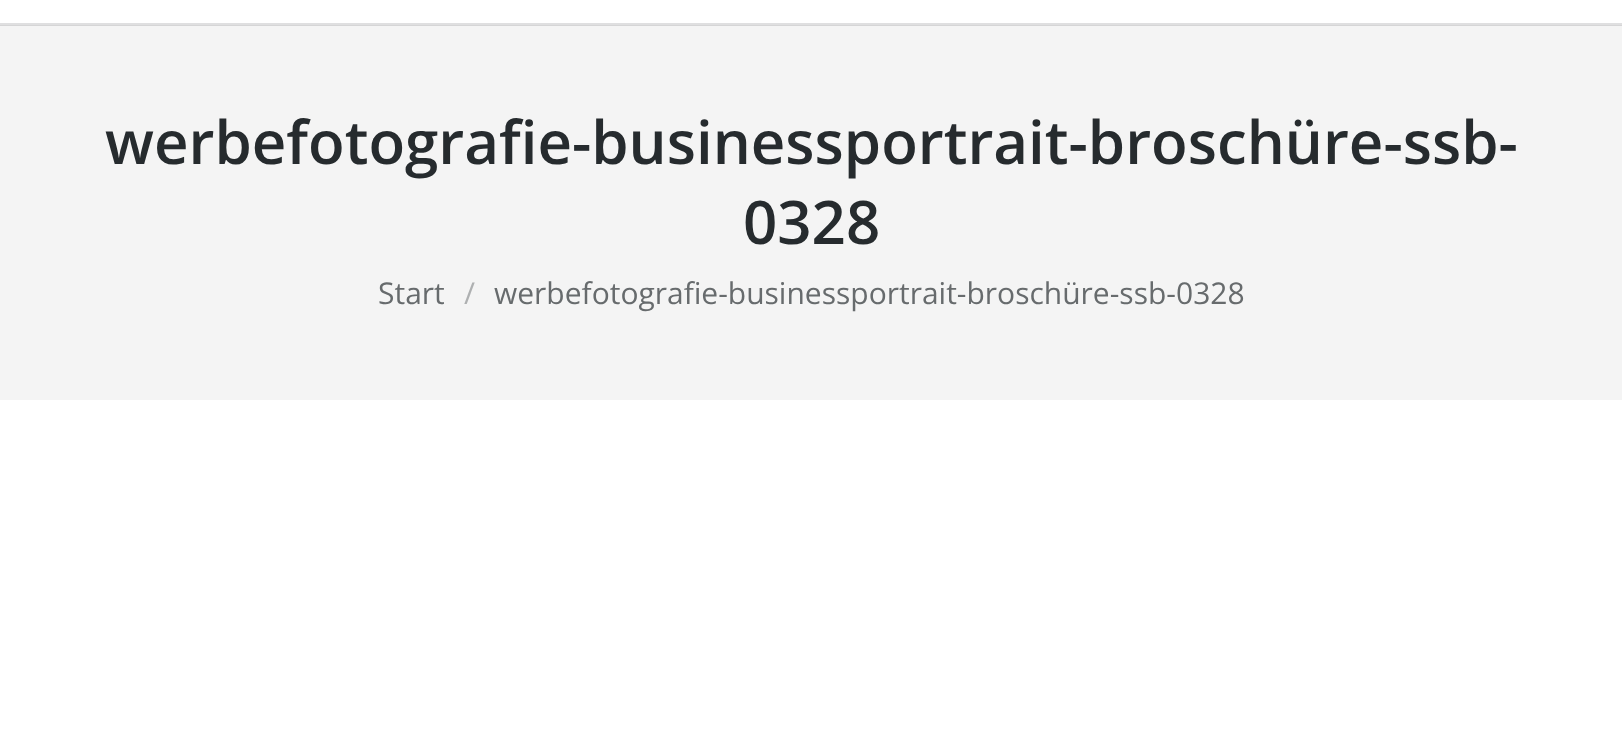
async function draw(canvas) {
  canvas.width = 1622;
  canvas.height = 731;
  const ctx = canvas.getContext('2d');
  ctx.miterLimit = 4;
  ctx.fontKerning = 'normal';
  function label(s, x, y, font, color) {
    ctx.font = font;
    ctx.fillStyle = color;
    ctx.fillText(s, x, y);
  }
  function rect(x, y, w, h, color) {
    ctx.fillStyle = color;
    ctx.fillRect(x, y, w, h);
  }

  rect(0, 0, 1622, 731, '#fff');
  rect(0, 25, 1622, 375, '#f4f4f4');
  rect(0, 23, 1622, 3, '#262b2e26');
  label('werbefotografie-businessportrait-broschüre-ssb-', 105, 164, '600 60px Open Sans', '#262b2e');
  label('0328', 743, 244, '600 60px Open Sans', '#262b2e');
  label('Start', 378, 304, '30px Open Sans', '#676b6d');
  label('/', 464, 304, '30px Open Sans', '#aeb0b1');
  label('werbefotografie-businessportrait-broschüre-ssb-0328', 494, 304, '30px Open Sans', '#676b6d');
}

draw(document.querySelector('canvas'));
